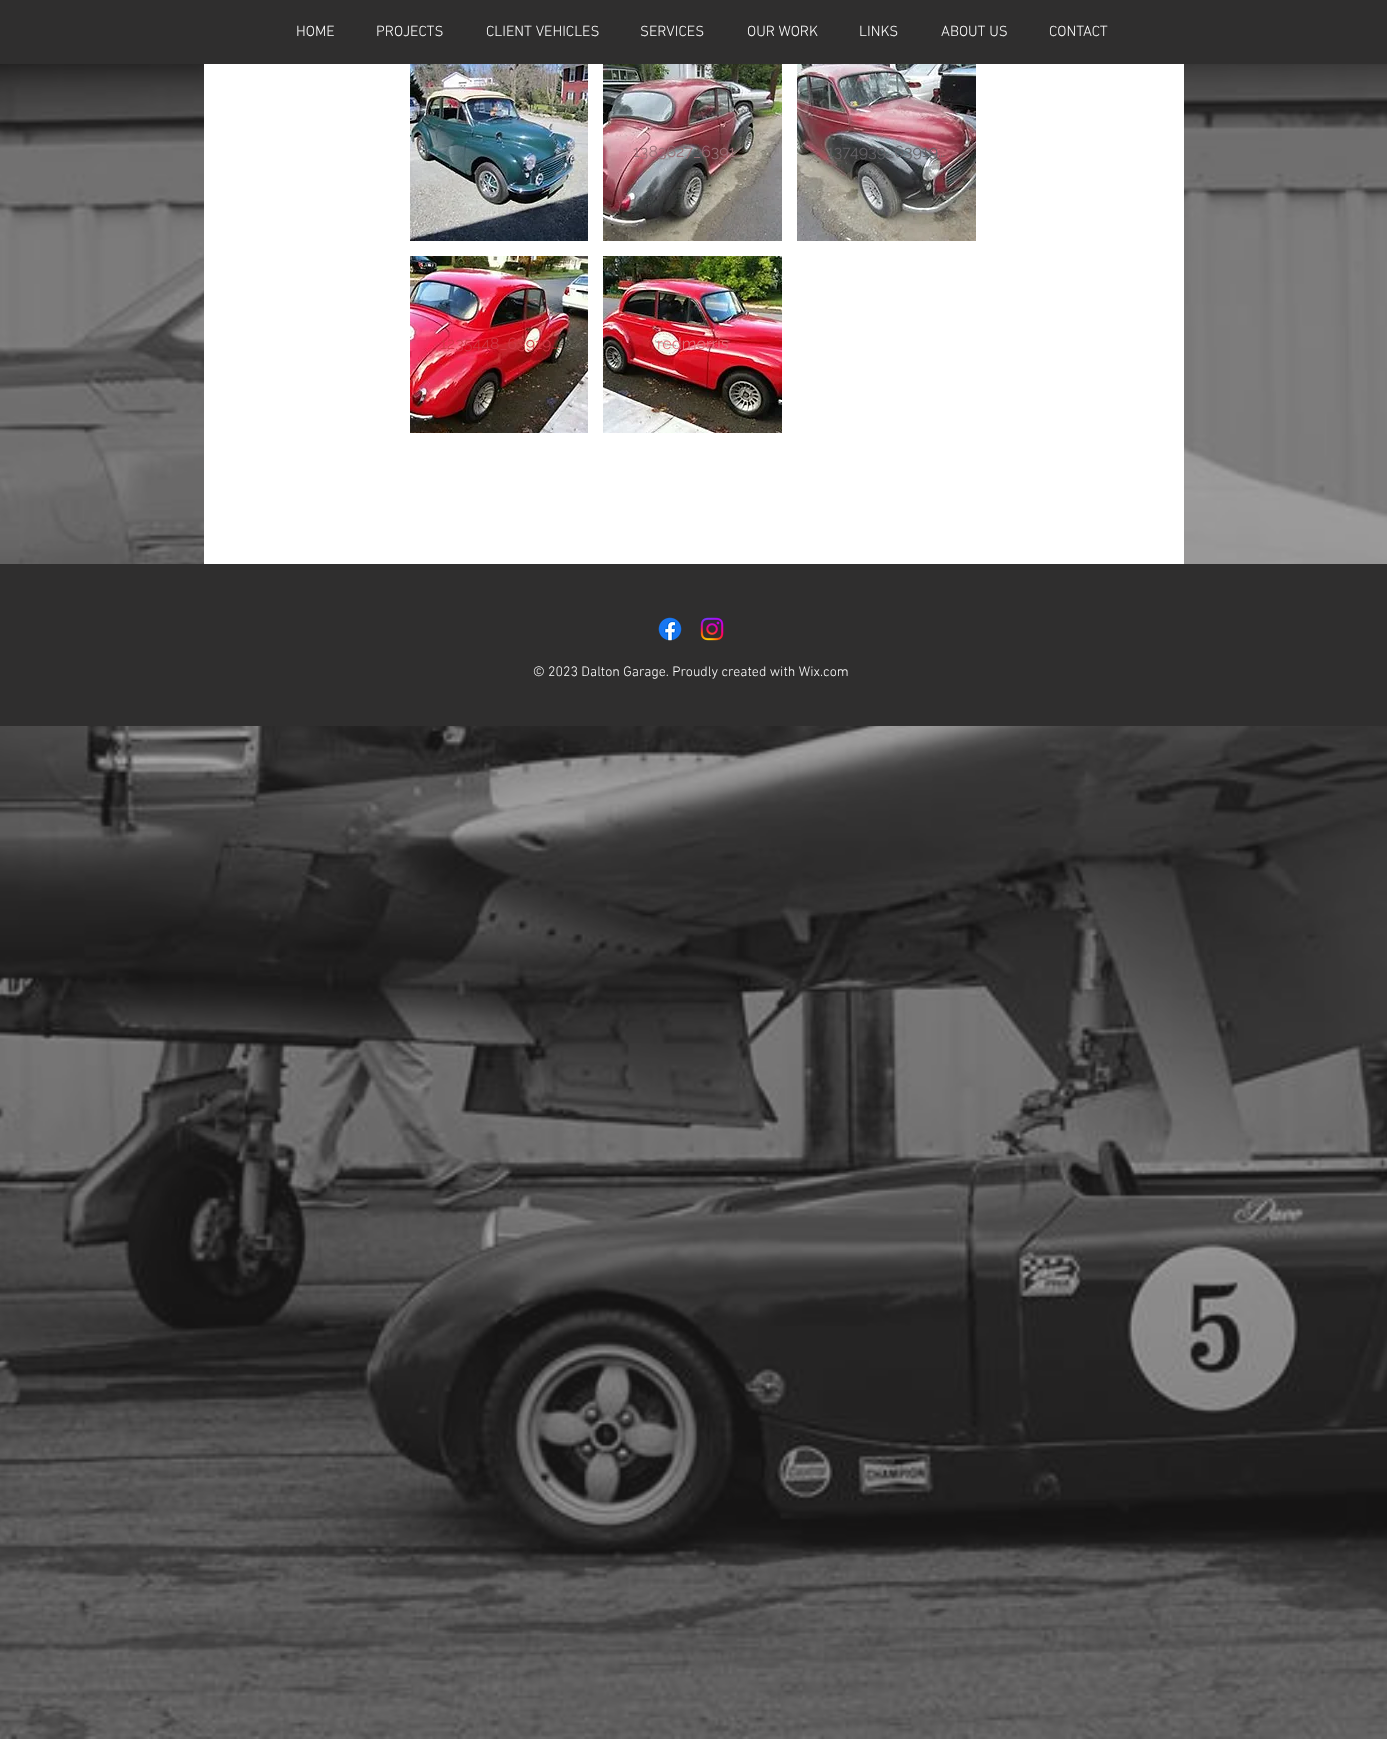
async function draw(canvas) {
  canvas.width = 1387;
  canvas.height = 1739;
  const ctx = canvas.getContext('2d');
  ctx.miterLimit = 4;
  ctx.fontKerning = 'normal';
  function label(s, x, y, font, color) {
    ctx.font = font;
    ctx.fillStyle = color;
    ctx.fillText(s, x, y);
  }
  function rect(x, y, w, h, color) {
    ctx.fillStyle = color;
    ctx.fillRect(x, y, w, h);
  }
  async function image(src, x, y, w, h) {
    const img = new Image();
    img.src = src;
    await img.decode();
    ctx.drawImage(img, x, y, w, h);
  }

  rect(0, 0, 1387, 1739, '#2f2e2e');
  label('HOME', 296, 36, '300 15px "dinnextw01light"', '#fff');
  label('PROJECTS', 376, 36, '300 15px "dinnextw01light"', '#fff');
  label('CLIENT VEHICLES', 486, 36, '300 15px "dinnextw01light"', '#fff');
  label('SERVICES', 640, 36, '300 15px "dinnextw01light"', '#fff');
  label('OUR WORK', 747, 36, '300 15px "dinnextw01light"', '#fff');
  label('LINKS', 859, 36, '300 15px "dinnextw01light"', '#fff');
  label('ABOUT US', 941, 36, '300 15px "dinnextw01light"', '#fff');
  label('CONTACT', 1049, 36, '300 15px "dinnextw01light"', '#fff');
  await image('assets/img8.png', 0, 64, 1387, 1675);
  rect(204, 64, 980, 500, '#fff');
  await image('assets/img1.png', 410, 64, 178, 177);
  await image('assets/img2.png', 603, 64, 179, 177);
  label('1383627_6391…', 633, 157, '16px Raleway', '#997077');
  await image('assets/img3.png', 797, 64, 179, 177);
  label('1374939_63919…', 827, 157, '16px Raleway', '#656267');
  await image('assets/img4.png', 410, 256, 178, 177);
  label('1235448_63919…', 440, 349, '16px Raleway', '#d13744');
  await image('assets/img5.png', 603, 256, 179, 177);
  label('redmorris', 657, 349, '16px Raleway', '#e26f7a');
  rect(0, 564, 1387, 162, '#2f2e2e');
  await image('assets/img6.png', 658, 617, 24, 24);
  await image('assets/img7.png', 700, 617, 24, 24);
  label('© 2023 Dalton Garage. Proudly created with Wix.com', 533, 676, '300 14px "dinnextw01light"', '#fff');
}

draw(document.querySelector('canvas'));
